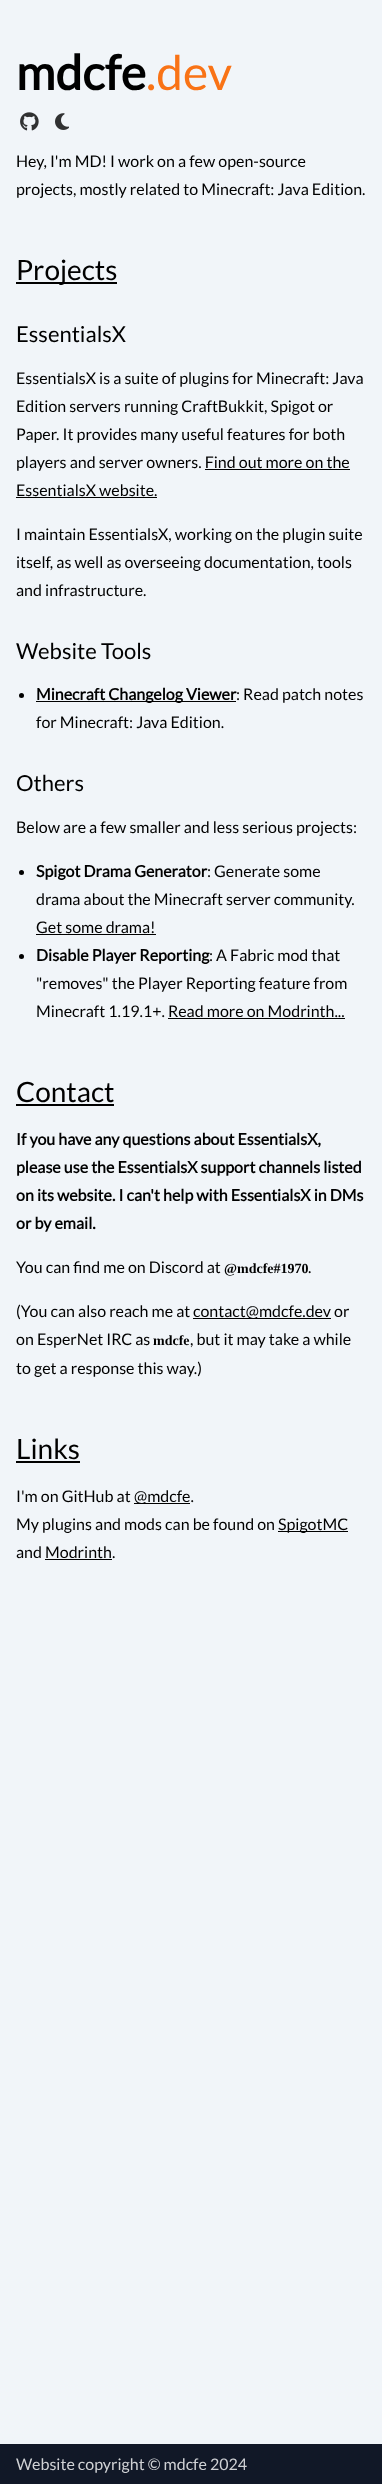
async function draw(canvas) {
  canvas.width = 382;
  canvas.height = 2484;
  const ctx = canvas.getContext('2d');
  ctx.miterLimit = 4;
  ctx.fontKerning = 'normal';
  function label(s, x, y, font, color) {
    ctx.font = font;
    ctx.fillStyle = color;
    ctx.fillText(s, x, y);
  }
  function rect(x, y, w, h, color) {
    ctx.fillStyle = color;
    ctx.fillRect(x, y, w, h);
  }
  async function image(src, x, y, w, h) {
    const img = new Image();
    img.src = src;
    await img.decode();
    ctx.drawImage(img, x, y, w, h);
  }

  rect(0, 0, 382, 2484, '#f1f5f9');
  label('mdcfe', 16, 90, 'bold 48px Lato', '#000');
  label('.dev', 146, 90, '48px Lato', '#f97316');
  await image('assets/img1.png', 20, 112, 19, 19);
  await image('assets/img2.png', 55, 113, 14, 17);
  label('Hey, I\'m MD! I work on a few open-source', 16, 167, '16px Lato', '#000');
  label('projects, mostly related to Minecraft: Java Edition.', 16, 195, '16px Lato', '#000');
  rect(16, 282, 101, 2, '#000');
  label('Projects', 16, 280, '28px Lato', '#000');
  label('EssentialsX', 16, 342, '22px Lato', '#000');
  label('EssentialsX is a suite of plugins for Minecraft: Java', 16, 384, '16px Lato', '#000');
  label('Edition servers running CraftBukkit, Spigot or', 16, 412, '16px Lato', '#000');
  label('Paper. It provides many useful features for both', 16, 440, '16px Lato', '#000');
  label('players and server owners. Find out more on the', 16, 468, '16px Lato', '#000');
  label('EssentialsX website.', 16, 496, '16px Lato', '#000');
  rect(205, 469, 145, 1, '#000');
  rect(16, 497, 141, 1, '#000');
  label('I maintain EssentialsX, working on the plugin suite', 16, 540, '16px Lato', '#000');
  label('itself, as well as overseeing documentation, tools', 16, 568, '16px Lato', '#000');
  label('and infrastructure.', 16, 596, '16px Lato', '#000');
  label('Website Tools', 16, 659, '22px Lato', '#000');
  ctx.beginPath();
  ctx.arc(21.5, 695.5, 2.5, 0, 2 * Math.PI);
  ctx.fill();
  rect(36, 701, 200, 1, '#000');
  label('Minecraft Changelog Viewer', 36, 700, 'bold 16px Lato', '#000');
  label(': Read patch notes', 236, 700, '16px Lato', '#000');
  label('for Minecraft: Java Edition.', 36, 728, '16px Lato', '#000');
  label('Others', 16, 791, '22px Lato', '#000');
  label('Below are a few smaller and less serious projects:', 16, 833, '16px Lato', '#000');
  ctx.beginPath();
  ctx.arc(21.5, 872.5, 2.5, 0, 2 * Math.PI);
  ctx.fill();
  label('Spigot Drama Generator', 36, 877, 'bold 16px Lato', '#000');
  label(': Generate some', 207, 877, '16px Lato', '#000');
  label('drama about the Minecraft server community.', 36, 905, '16px Lato', '#000');
  label('Get some drama!', 36, 933, '16px Lato', '#000');
  rect(36, 934, 120, 1, '#000');
  ctx.beginPath();
  ctx.arc(21.5, 956.5, 2.5, 0, 2 * Math.PI);
  ctx.fill();
  label('Disable Player Reporting', 36, 961, 'bold 16px Lato', '#000');
  label(': A Fabric mod that', 209, 961, '16px Lato', '#000');
  label('"removes" the Player Reporting feature from', 36, 989, '16px Lato', '#000');
  label('Minecraft 1.19.1+. Read more on Modrinth...', 36, 1017, '16px Lato', '#000');
  rect(168, 1018, 177, 1, '#000');
  label('Contact', 16, 1102, '28px Lato', '#000');
  rect(16, 1104, 98, 2, '#000');
  label('If you have any questions about EssentialsX,', 16, 1145, 'bold 16px Lato', '#000');
  label('please use the EssentialsX support channels listed', 16, 1173, 'bold 16px Lato', '#000');
  label('on its website. I can\'t help with EssentialsX in DMs', 16, 1201, 'bold 16px Lato', '#000');
  label('or by email.', 16, 1229, 'bold 16px Lato', '#000');
  label('You can find me on Discord at', 16, 1273, '16px Lato', '#000');
  label('@mdcfe#1970', 224, 1273, 'bold 14px Liberation Serif', '#000');
  label('.', 308, 1273, '16px Lato', '#000');
  label('(You can also reach me at', 16, 1317, '16px Lato', '#000');
  rect(193, 1318, 138, 1, '#000');
  label('contact@mdcfe.dev or', 193, 1317, '16px Lato', '#000');
  label('on EsperNet IRC as', 16, 1345, '16px Lato', '#000');
  label('mdcfe', 153, 1345, 'bold 14px Liberation Serif', '#000');
  label(', but it may take a while', 190, 1345, '16px Lato', '#000');
  label('to get a response this way.)', 16, 1374, '16px Lato', '#000');
  label('Links', 16, 1459, '28px Lato', '#000');
  rect(16, 1461, 64, 2, '#000');
  label('I\'m on GitHub at', 16, 1502, '16px Lato', '#000');
  rect(134, 1503, 56, 1, '#000');
  label('@mdcfe.', 134, 1502, '16px Lato', '#000');
  label('My plugins and mods can be found on', 16, 1530, '16px Lato', '#000');
  rect(278, 1531, 70, 1, '#000');
  label('SpigotMC', 278, 1530, '16px Lato', '#000');
  label('and Modrinth.', 16, 1558, '16px Lato', '#000');
  rect(45, 1559, 67, 1, '#000');
  rect(0, 2444, 382, 40, '#111827');
  label('Website copyright © mdcfe 2024', 16, 2470, '16px Lato', '#cfd1d4');
}

draw(document.querySelector('canvas'));
